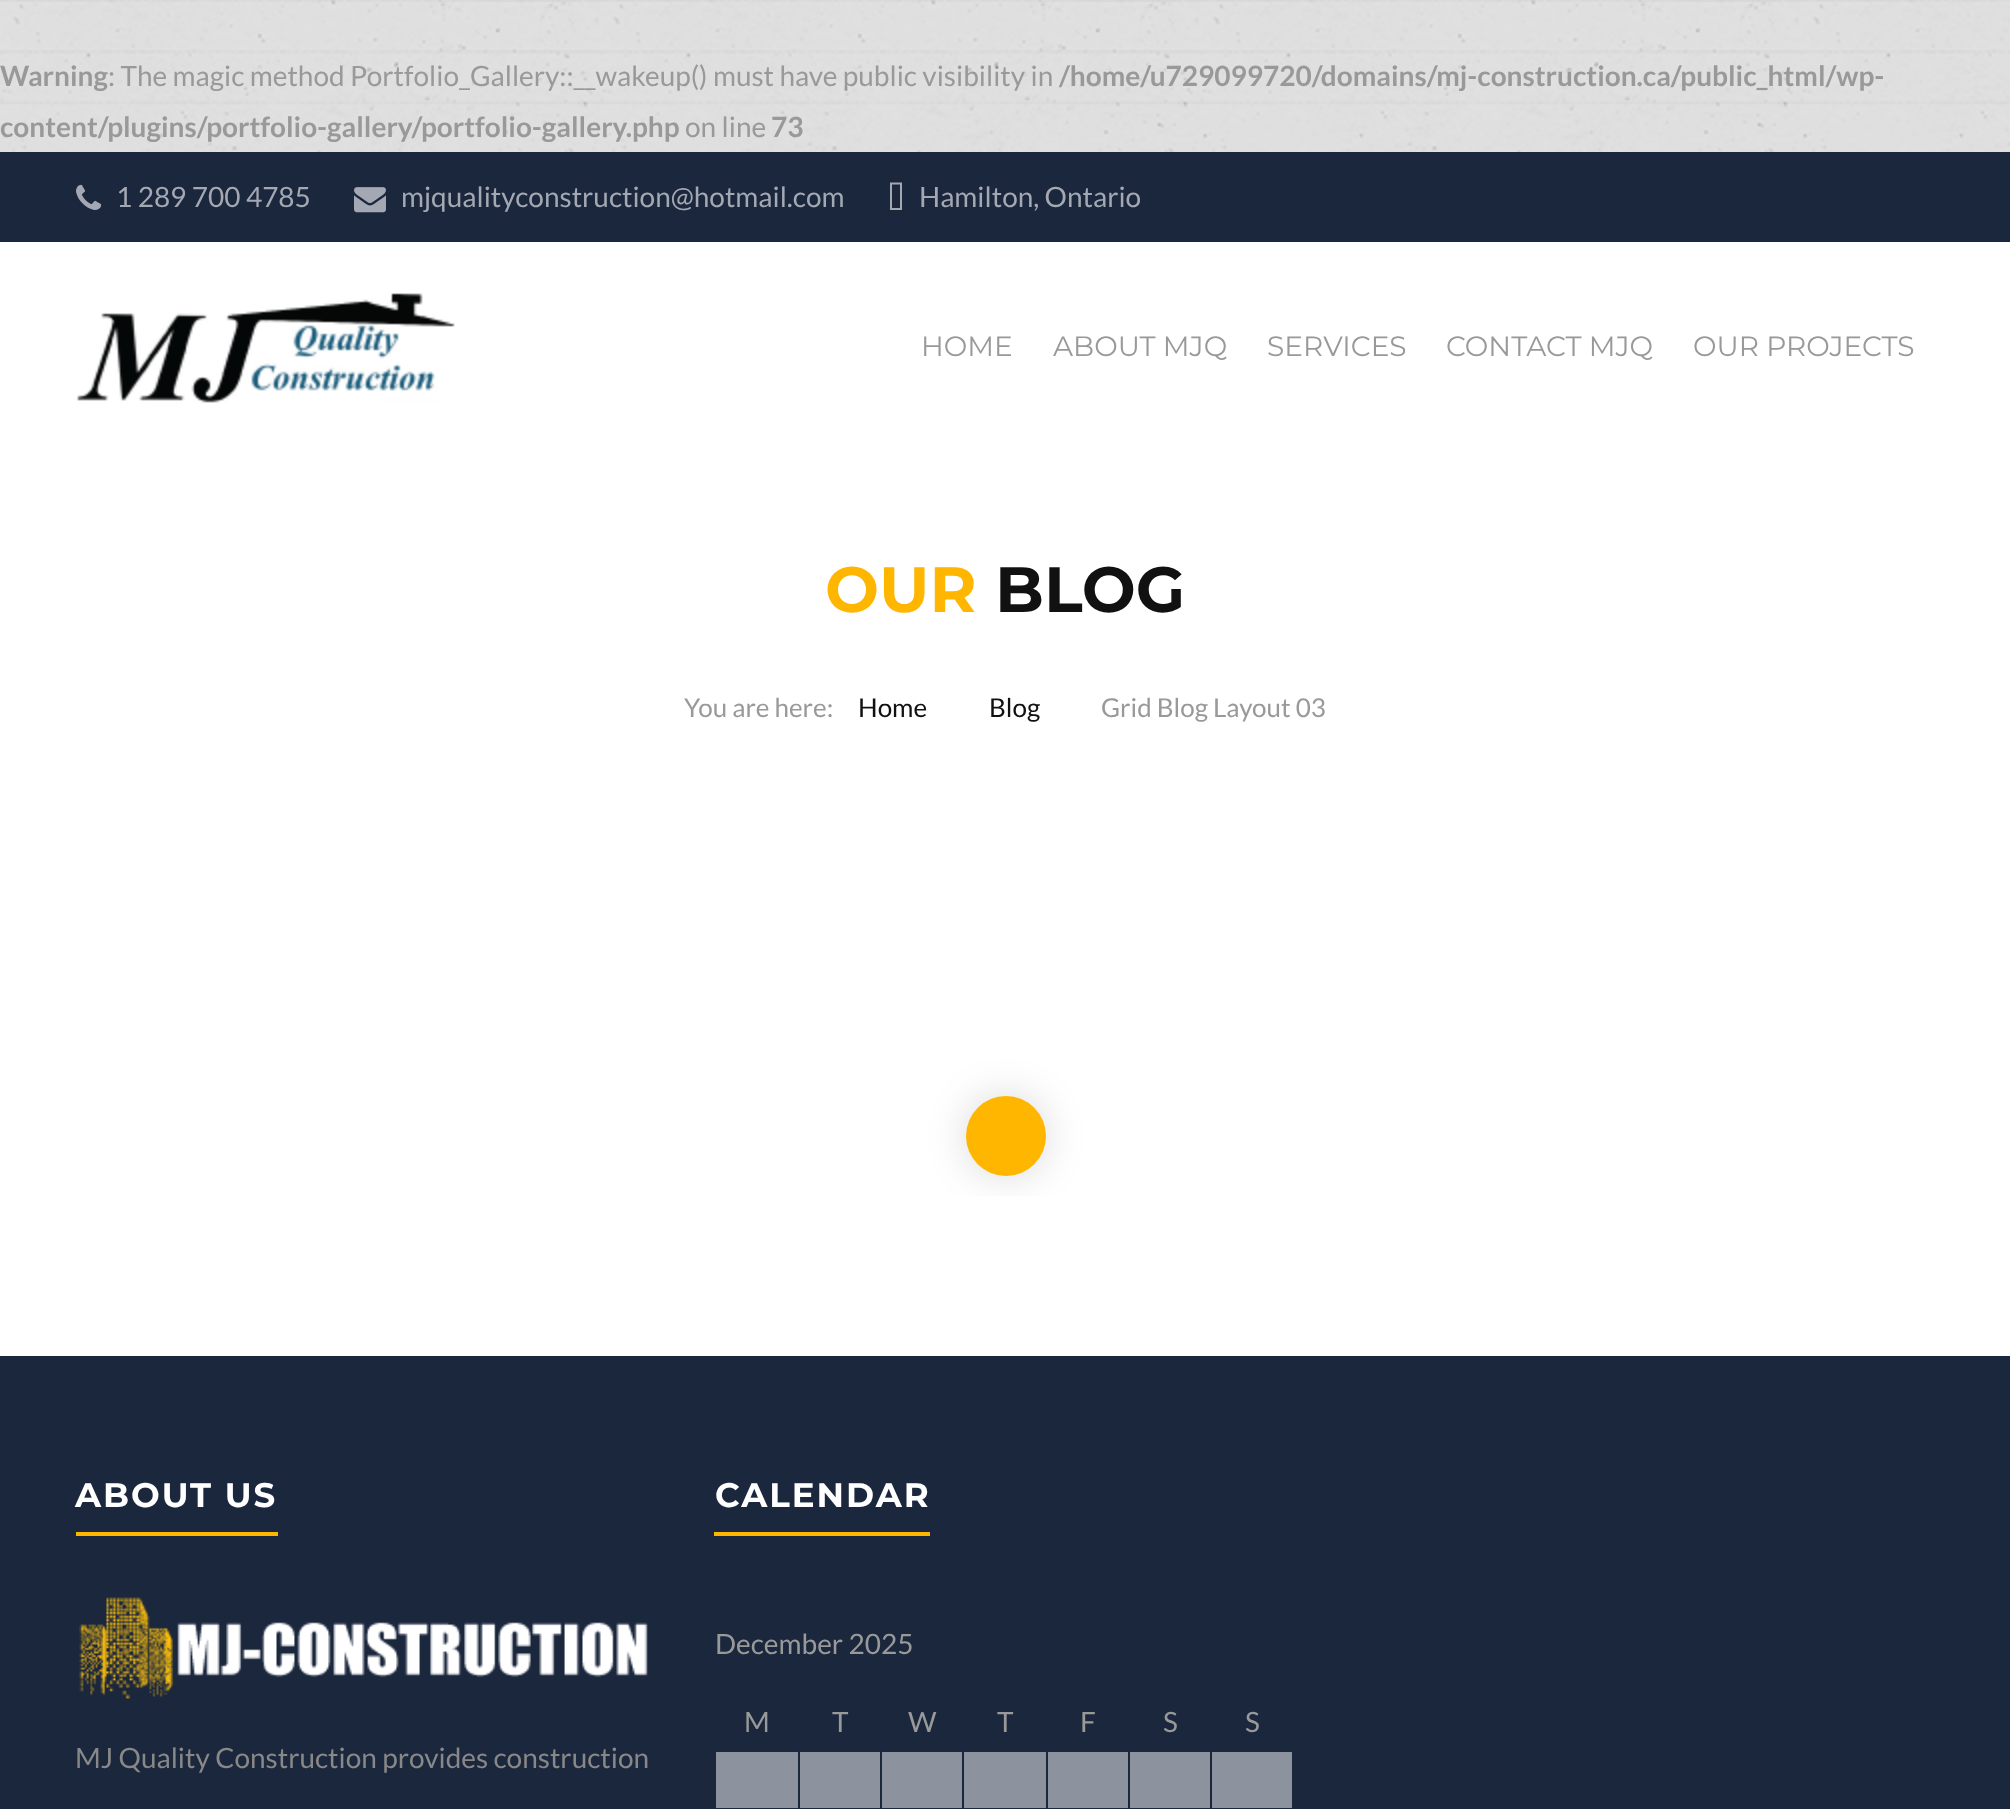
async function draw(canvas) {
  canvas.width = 2010;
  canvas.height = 1809;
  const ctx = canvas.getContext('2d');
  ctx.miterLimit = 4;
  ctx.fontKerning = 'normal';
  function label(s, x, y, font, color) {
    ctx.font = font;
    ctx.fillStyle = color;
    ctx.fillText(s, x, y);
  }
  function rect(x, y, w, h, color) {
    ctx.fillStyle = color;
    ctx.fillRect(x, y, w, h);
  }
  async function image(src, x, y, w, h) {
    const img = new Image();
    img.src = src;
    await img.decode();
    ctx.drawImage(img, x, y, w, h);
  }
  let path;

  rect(0, 0, 2010, 1809, '#fff');
  await image('assets/img1.png', 0, 0, 2010, 152);
  label('Warning', 0, 86, 'bold 28px Lato', '#999');
  label(': The magic method Portfolio_Gallery::__wakeup() must have public visibility in', 108, 86, '28px Lato', '#999');
  label('/home/u729099720/domains/mj-construction.ca/public_html/wp-', 1059, 86, 'bold 28px Lato', '#999');
  label('content/plugins/portfolio-gallery/portfolio-gallery.php', 0, 137, 'bold 28px Lato', '#999');
  label('on line', 685, 137, '28px Lato', '#999');
  label('73', 771, 137, 'bold 28px Lato', '#999');
  rect(0, 152, 2010, 90, '#1b273d');
  await image('assets/img2.png', 76, 184, 26, 26);
  label('1 289 700 4785', 116, 207, '28px Lato', '#a3a8b2');
  await image('assets/img3.png', 354, 187, 32, 26);
  label('mjqualityconstruction@hotmail.com', 401, 207, '28px Lato', '#a3a8b2');
  path = new Path2D('M892 208H900V184.5H892ZM890 210V182.5H902V210Z');
  ctx.fill(path);
  label('Hamilton, Ontario', 919, 207, '28px Lato', '#a3a8b2');
  await image('assets/img4.png', 76, 293, 379, 110);
  label('HOME', 921, 356, '100 28px Montserrat', '#999');
  label('ABOUT MJQ', 1053, 356, '100 28px Montserrat', '#999');
  label('SERVICES', 1267, 356, '100 28px Montserrat', '#999');
  label('CONTACT MJQ', 1446, 356, '100 28px Montserrat', '#999');
  label('OUR PROJECTS', 1693, 356, '100 28px Montserrat', '#999');
  label('OUR', 825, 612, 'bold 64px Montserrat', '#ffb600');
  label('BLOG', 995, 612, 'bold 64px Montserrat', '#111');
  label('You are here:', 684, 717, '26px Lato', '#999');
  label('Home', 858, 717, '26px Lato', '#111');
  label('Blog', 989, 717, '26px Lato', '#111');
  label('Grid Blog Layout 03', 1101, 717, '26px Lato', '#999');
  ctx.save();
  ctx.beginPath();
  ctx.rect(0, 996, 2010, 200);
  ctx.clip();
  ctx.fillStyle = '#00000026';
  ctx.filter = 'blur(20px)';
  ctx.beginPath();
  ctx.roundRect(966, 1096, 80, 80, 40);
  ctx.fill();
  ctx.filter = 'none';
  ctx.restore();
  ctx.fillStyle = '#ffb600';
  ctx.beginPath();
  ctx.arc(1006, 1136, 40, 0, 2 * Math.PI);
  ctx.fill();
  rect(0, 1356, 2010, 453, '#1b273d');
  ctx.letterSpacing = '2px';
  label('ABOUT US', 75, 1507, 'bold 34px Montserrat', '#fff');
  rect(76, 1532, 202, 4, '#ffb600');
  await image('assets/img5.png', 79, 1597, 569, 102);
  ctx.letterSpacing = '0px';
  label('MJ Quality Construction provides construction', 75, 1768, '28px Lato', '#888');
  ctx.letterSpacing = '2px';
  label('CALENDAR', 715, 1507, 'bold 34px Montserrat', '#fff');
  rect(714, 1532, 216, 4, '#ffb600');
  ctx.letterSpacing = '0px';
  label('December 2025', 715, 1654, '28px Lato', '#999');
  label('M', 744, 1732, '28px Lato', '#999');
  label('T', 832, 1732, '28px Lato', '#999');
  label('W', 908, 1732, '28px Lato', '#999');
  label('T', 997, 1732, '28px Lato', '#999');
  label('F', 1080, 1732, '28px Lato', '#999');
  label('S', 1163, 1732, '28px Lato', '#999');
  label('S', 1245, 1732, '28px Lato', '#999');
  rect(716, 1752, 82, 56, '#8d939e');
  rect(800, 1752, 80, 56, '#8d939e');
  rect(882, 1752, 80, 56, '#8d939e');
  rect(964, 1752, 82, 56, '#8d939e');
  rect(1048, 1752, 80, 56, '#8d939e');
  rect(1130, 1752, 80, 56, '#8d939e');
  rect(1212, 1752, 80, 56, '#8d939e');
}

draw(document.querySelector('canvas'));
